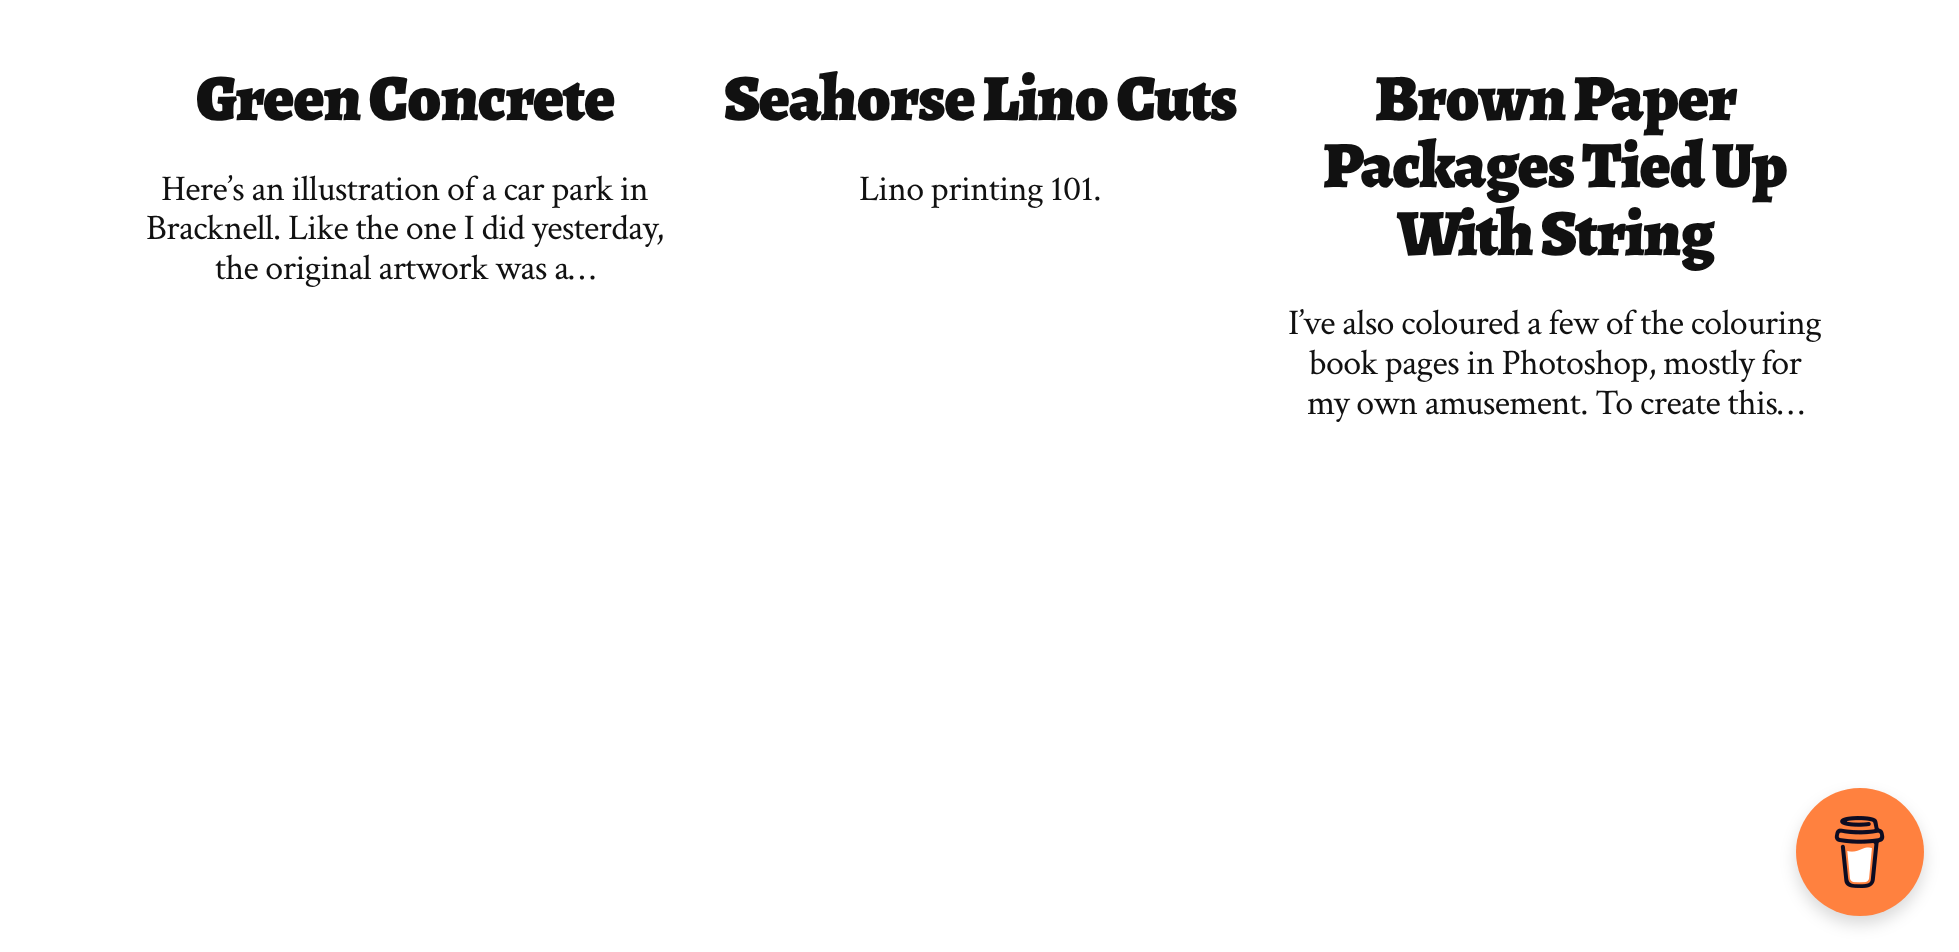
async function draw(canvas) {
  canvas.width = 1959;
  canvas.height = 952;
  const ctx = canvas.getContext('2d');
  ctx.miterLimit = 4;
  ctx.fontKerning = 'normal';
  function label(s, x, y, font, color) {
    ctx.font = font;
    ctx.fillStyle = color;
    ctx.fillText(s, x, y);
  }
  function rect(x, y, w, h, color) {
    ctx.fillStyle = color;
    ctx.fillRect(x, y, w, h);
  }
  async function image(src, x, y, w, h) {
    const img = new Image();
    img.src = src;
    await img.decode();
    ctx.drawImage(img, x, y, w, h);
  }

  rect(0, 0, 1959, 952, '#fff');
  ctx.letterSpacing = '-1.3px';
  label('Green Concrete', 196, 120, '900 66px Alegreya', '#111');
  ctx.letterSpacing = '-0.65px';
  label('Here’s an illustration of a car park in', 161, 200, '36.1px Crimson Text', '#111');
  label('Bracknell. Like the one I did yesterday,', 146, 239, '36.1px Crimson Text', '#111');
  label('the original artwork was a…', 215, 279, '36.1px Crimson Text', '#111');
  ctx.letterSpacing = '-1.3px';
  label('Seahorse Lino Cuts', 724, 120, '900 66px Alegreya', '#111');
  ctx.letterSpacing = '-0.65px';
  label('Lino printing 101.', 859, 200, '36.1px Crimson Text', '#111');
  ctx.letterSpacing = '-1.3px';
  label('Brown Paper', 1375, 120, '900 66px Alegreya', '#111');
  label('Packages Tied Up', 1323, 187, '900 66px Alegreya', '#111');
  label('With String', 1397, 255, '900 66px Alegreya', '#111');
  ctx.letterSpacing = '-0.65px';
  label('I’ve also coloured a few of the colouring', 1288, 334, '36.1px Crimson Text', '#111');
  label('book pages in Photoshop, mostly for', 1309, 374, '36.1px Crimson Text', '#111');
  label('my own amusement. To create this…', 1307, 414, '36.1px Crimson Text', '#111');
  ctx.fillStyle = '#00000026';
  ctx.filter = 'blur(8px)';
  ctx.beginPath();
  ctx.roundRect(1796, 796, 128, 128, 64);
  ctx.fill();
  ctx.filter = 'none';
  ctx.fillStyle = '#ff813f';
  ctx.beginPath();
  ctx.arc(1860, 852, 64, 0, 2 * Math.PI);
  ctx.fill();
  await image('assets/img1.png', 1834, 816, 51, 72);
}

draw(document.querySelector('canvas'));
